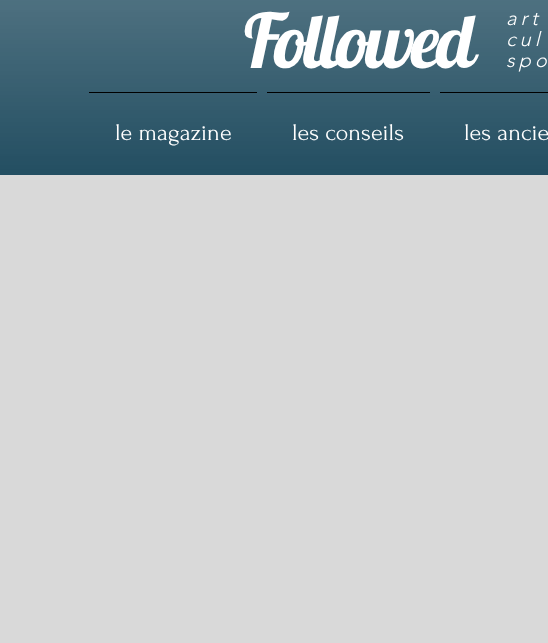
async function draw(canvas) {
  canvas.width = 548;
  canvas.height = 643;
  const ctx = canvas.getContext('2d');
  ctx.miterLimit = 4;
  ctx.fontKerning = 'none';
  function label(s, x, y, font, color) {
    ctx.font = font;
    ctx.fillStyle = color;
    ctx.fillText(s, x, y);
  }
  function rect(x, y, w, h, color) {
    ctx.fillStyle = color;
    ctx.fillRect(x, y, w, h);
  }
  async function image(src, x, y, w, h) {
    const img = new Image();
    img.src = src;
    await img.decode();
    ctx.drawImage(img, x, y, w, h);
  }

  rect(0, 0, 548, 643, '#d9d9d9');
  rect(0, 0, 548, 175, '#103f54');
  await image('assets/img1.png', 0, 0, 548, 175);
  ctx.letterSpacing = '-3.75px';
  label('Followed', 244, 68, '75px Lobster', '#fff');
  ctx.letterSpacing = '4px';
  label('art', 506, 25, 'italic 300 20px "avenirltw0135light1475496"', '#fff');
  label('cul', 506, 46, 'italic 300 20px "avenirltw0135light1475496"', '#fff');
  label('spo', 506, 67, 'italic 300 20px "avenirltw0135light1475496"', '#fff');
  rect(89, 92, 168, 1, '#000');
  ctx.letterSpacing = '0px';
  label('le magazine', 115, 140, '24px Forum', '#fff');
  rect(267, 92, 163, 1, '#000');
  label('les conseils', 292, 140, '24px Forum', '#fff');
  rect(440, 92, 108, 1, '#000');
  label('les ancie', 464, 140, '24px Forum', '#fff');
}

draw(document.querySelector('canvas'));
